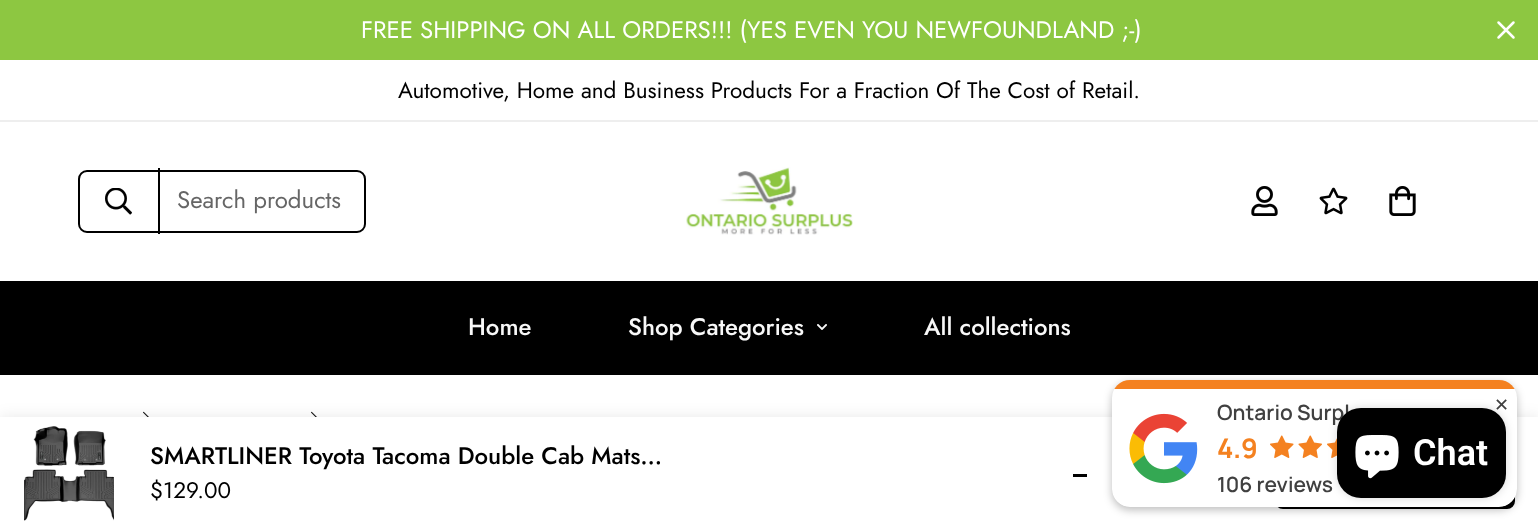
async function draw(canvas) {
  canvas.width = 1538;
  canvas.height = 529;
  const ctx = canvas.getContext('2d');
  ctx.miterLimit = 4;
  ctx.fontKerning = 'normal';
  function label(s, x, y, font, color) {
    ctx.font = font;
    ctx.fillStyle = color;
    ctx.fillText(s, x, y);
  }
  function rect(x, y, w, h, color) {
    ctx.fillStyle = color;
    ctx.fillRect(x, y, w, h);
  }
  function roundedRect(x, y, w, h, r, color) {
    ctx.fillStyle = color;
    ctx.beginPath();
    ctx.roundRect(x, y, w, h, r);
    ctx.fill();
  }
  async function image(src, x, y, w, h) {
    const img = new Image();
    img.src = src;
    await img.decode();
    ctx.drawImage(img, x, y, w, h);
  }
  let path;

  rect(0, 0, 1538, 529, '#fff');
  rect(0, 0, 1538, 60, '#8dc741');
  label('FREE SHIPPING ON ALL ORDERS!!! (YES EVEN YOU NEWFOUNDLAND ;-)', 361, 38, '24px Jost', '#fff');
  path = new Path2D('M1498.5 37.5L1513.5 22.5M1498.5 22.5L1513.5 37.5');
  ctx.strokeStyle = '#fff';
  ctx.lineWidth = 2.5;
  ctx.lineCap = 'round';
  ctx.lineJoin = 'round';
  ctx.stroke(path);
  rect(0, 120, 1538, 2, '#eee');
  label('Automotive, Home and Business Products For a Fraction Of The Cost of Retail.', 398, 98, '22.5px Jost', '#000');
  ctx.beginPath();
  ctx.roundRect(79, 171, 286, 61, 8);
  ctx.strokeStyle = '#000';
  ctx.lineWidth = 2;
  ctx.lineJoin = 'miter';
  ctx.stroke();
  rect(158, 168, 2, 66, '#000');
  await image('assets/img1.png', 105, 188, 27, 27);
  label('Search products', 177, 208, '24px Jost', '#666');
  await image('assets/img2.png', 686, 167, 167, 68);
  await image('assets/img3.png', 1251, 186, 27, 30);
  await image('assets/img4.png', 1319, 187, 29, 28);
  await image('assets/img5.png', 1389, 186, 27, 30);
  rect(0, 281, 1538, 94, '#000');
  label('Home', 468, 335, '500 24px Jost', '#f8f8f8');
  label('Shop Categories', 628, 335, '500 24px Jost', '#f8f8f8');
  await image('assets/img6.png', 817, 324, 10, 6);
  label('All collections', 924, 335, '500 24px Jost', '#f8f8f8');
  await image('assets/img7.png', 143, 411, 6, 6);
  await image('assets/img7.png', 311, 411, 6, 6);
  ctx.fillStyle = '#00000017';
  ctx.filter = 'blur(7.5px)';
  ctx.beginPath();
  ctx.rect(0, 417, 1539, 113);
  ctx.fill();
  ctx.filter = 'none';
  rect(0, 417, 1538, 112, '#fff');
  ctx.fillStyle = '#000';
  ctx.beginPath();
  ctx.roundRect(1276, 441, 238, 67, 7);
  ctx.fill();
  ctx.stroke();
  ctx.fillStyle = '#00000042';
  ctx.filter = 'blur(4px)';
  ctx.beginPath();
  ctx.roundRect(1112, 383, 405, 127, 18);
  ctx.fill();
  ctx.filter = 'none';
  ctx.save();
  ctx.beginPath();
  ctx.roundRect(1112, 380, 405, 127, 18);
  ctx.clip();
  rect(1114, 380, 401, 9, '#f48120');
  ctx.fillStyle = '#fff';
  ctx.beginPath();
  ctx.roundRect(1112, 389, 405, 118, [0, 0, 18, 18]);
  ctx.fill();
  ctx.restore();
  await image('assets/img8.png', 1129, 413, 69, 71);
  label('Ontario Surpl', 1217, 420, '600 21px Manrope', '#404040');
  label('4.9', 1217, 458, 'bold 27px Manrope', '#f48120');
  await image('assets/img9.png', 1270, 435, 24, 23);
  await image('assets/img10.png', 1298, 435, 24, 23);
  await image('assets/img11.png', 1327, 438, 10, 20);
  label('106 reviews', 1217, 492, '600 21px Manrope', '#404040');
  label('✕', 1494, 411, '18px DejaVu Sans', '#404040');
  await image('assets/img12.png', 24, 426, 90, 95);
  label('SMARTLINER Toyota Tacoma Double Cab Mats…', 150, 464, '500 24px Jost', '#000');
  label('$129.00', 150, 498, '22.5px Jost', '#000');
  rect(1073, 474, 14, 3, '#000');
  ctx.fillStyle = '#00000026';
  ctx.filter = 'blur(4px)';
  ctx.beginPath();
  ctx.roundRect(1337, 408, 169, 90, 24);
  ctx.fill();
  ctx.filter = 'none';
  roundedRect(1337, 408, 169, 90, 24, '#000');
  await image('assets/img13.png', 1355, 435, 44, 44);
  label('Chat', 1413, 465, '600 36px Roboto', '#fff');
}

draw(document.querySelector('canvas'));
